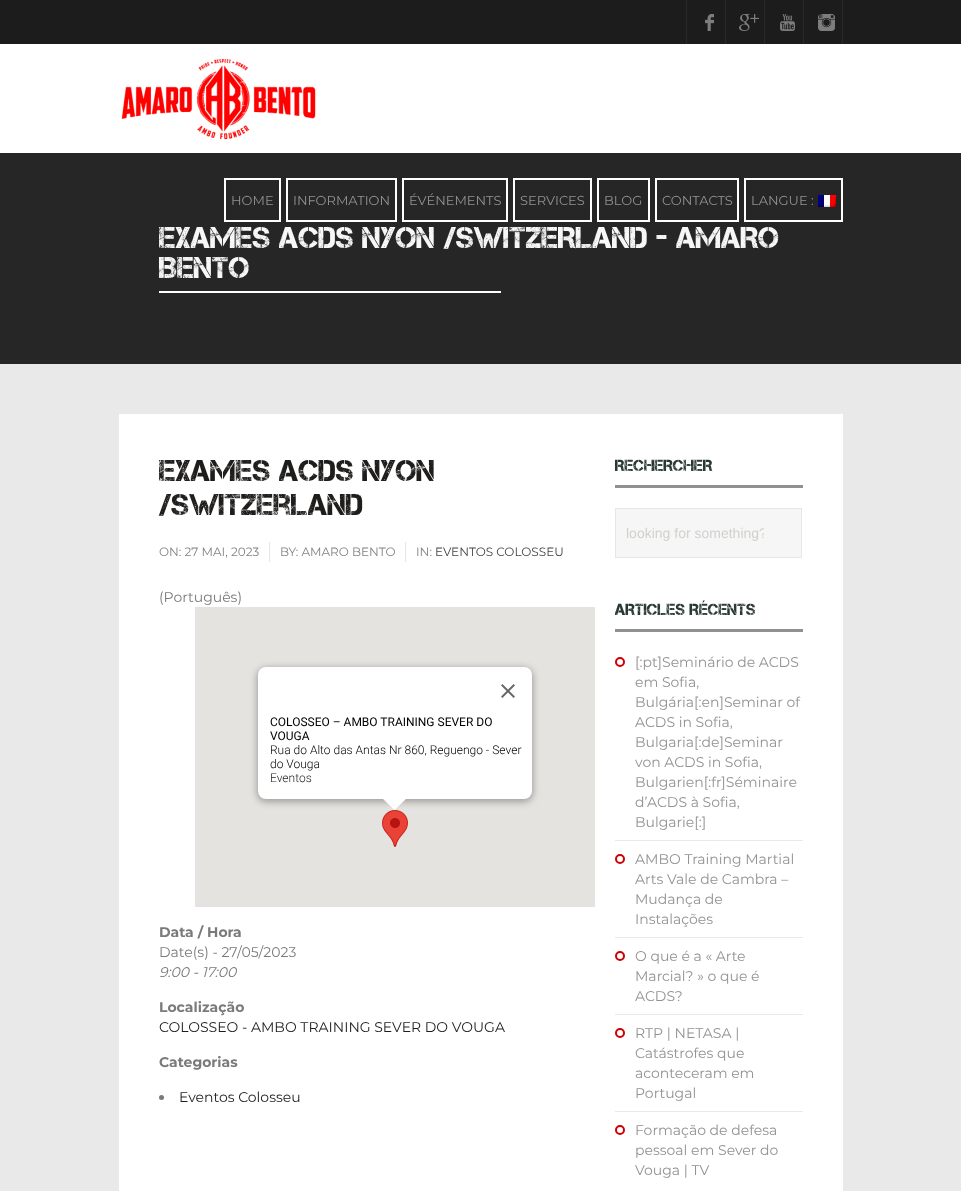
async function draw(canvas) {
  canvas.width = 961;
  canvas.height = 1191;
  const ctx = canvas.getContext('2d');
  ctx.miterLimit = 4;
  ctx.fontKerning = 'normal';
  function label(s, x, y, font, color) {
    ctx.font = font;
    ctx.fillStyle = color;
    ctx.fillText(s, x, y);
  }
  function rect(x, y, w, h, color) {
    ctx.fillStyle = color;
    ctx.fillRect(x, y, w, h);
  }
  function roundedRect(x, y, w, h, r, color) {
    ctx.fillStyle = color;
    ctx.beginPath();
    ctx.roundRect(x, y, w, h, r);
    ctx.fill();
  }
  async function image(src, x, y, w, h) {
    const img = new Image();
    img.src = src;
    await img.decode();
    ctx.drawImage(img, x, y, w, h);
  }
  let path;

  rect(0, 0, 961, 1191, '#e9e9e9');
  rect(0, 44, 961, 109, '#fff');
  rect(0, 0, 961, 44, '#1c1c1c');
  rect(686, 0, 1, 44, '#292929');
  await image('assets/img1.png', 705, 14, 9, 17);
  rect(725, 0, 1, 44, '#292929');
  await image('assets/img2.png', 739, 14, 20, 17);
  rect(764, 0, 1, 44, '#292929');
  await image('assets/img3.png', 780, 14, 15, 17);
  rect(842, 0, 1, 44, '#292929');
  rect(803, 0, 1, 44, '#292929');
  await image('assets/img4.png', 818, 14, 17, 17);
  await image('assets/img5.png', 121, 59, 195, 81);
  rect(0, 153, 961, 211, '#252625');
  ctx.strokeStyle = '#fff';
  ctx.lineWidth = 2;
  ctx.strokeRect(225, 179, 55, 42);
  label('HOME', 231, 205, '13px Montserrat', '#929292');
  ctx.strokeRect(287, 179, 109, 42);
  label('INFORMATION', 293, 205, '13px Montserrat', '#929292');
  ctx.strokeRect(403, 179, 104, 42);
  label('ÉVÉNEMENTS', 409, 205, '13px Montserrat', '#929292');
  ctx.strokeRect(514, 179, 77, 42);
  label('SERVICES', 520, 205, '13px Montserrat', '#929292');
  ctx.strokeRect(598, 179, 51, 42);
  label('BLOG', 604, 205, '13px Montserrat', '#929292');
  ctx.strokeRect(656, 179, 82, 42);
  label('CONTACTS', 662, 205, '13px Montserrat', '#929292');
  ctx.strokeRect(745, 179, 97, 42);
  label('LANGUE :', 751, 205, '13px Montserrat', '#929292');
  await image('assets/img6.png', 818, 195, 18, 12);
  label('EXAMES ACDS NYON /SWITZERLAND - AMARO', 159, 248, '30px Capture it', '#f7f7f7');
  label('BENTO', 159, 278, '30px Capture it', '#f7f7f7');
  rect(159, 291, 342, 2, '#fff');
  rect(119, 414, 724, 777, '#fff');
  label('Exames ACDS NYON', 159, 481, '30px Capture it', '#1e1d1c');
  label('/Switzerland', 159, 515, '30px Capture it', '#1e1d1c');
  rect(269, 542, 1, 20, '#e6e6e2');
  label('ON: 27 MAI, 2023', 159, 556, '12px Montserrat', '#828282');
  rect(405, 542, 1, 20, '#e6e6e2');
  label('BY: AMARO BENTO', 280, 556, '12px Montserrat', '#828282');
  label('IN:', 416, 556, '12px Montserrat', '#828282');
  label('EVENTOS COLOSSEU', 435, 556, '12px Montserrat', '#444');
  label('(Português)', 159, 602, '14px Montserrat', '#7a7a7a');
  rect(195, 607, 400, 300, '#e5e3df');
  await image('assets/img8.png', 382, 810, 26, 37);
  ctx.fillStyle = '#0000004d';
  ctx.filter = 'blur(3.5px)';
  ctx.beginPath();
  ctx.roundRect(257, 668, 276, 134, 9);
  ctx.fill();
  ctx.filter = 'none';
  roundedRect(258, 667, 274, 132, 8, '#fff');
  await image('assets/img7.png', 501, 684, 14, 14);
  label('COLOSSEO – AMBO TRAINING SEVER DO', 270, 726, '12px Roboto', '#000');
  label('VOUGA', 270, 740, '12px Roboto', '#000');
  label('Rua do Alto das Antas Nr 860, Reguengo - Sever', 270, 754, '300 12px Roboto', '#000');
  label('do Vouga', 270, 768, '300 12px Roboto', '#000');
  label('Eventos', 270, 782, '300 12px Roboto', '#1e1d1c');
  ctx.fillStyle = '#fff';
  path = new Path2D('M383 798V799L394.5 810L407 798Z');
  ctx.fill(path);
  label('Data / Hora', 159, 937, 'bold 14px Montserrat', '#7a7a7a');
  label('Date(s) - 27/05/2023', 159, 957, '14px Montserrat', '#7a7a7a');
  label('9:00 - 17:00', 159, 977, 'italic 14px Montserrat', '#7a7a7a');
  label('Localização', 159, 1012, 'bold 14px Montserrat', '#7a7a7a');
  label('COLOSSEO - AMBO TRAINING SEVER DO VOUGA', 159, 1032, '14px Montserrat', '#1e1d1c');
  label('Categorias', 159, 1067, 'bold 14px Montserrat', '#7a7a7a');
  ctx.beginPath();
  ctx.arc(161.5, 1097.5, 2.5, 0, 2 * Math.PI);
  ctx.fill();
  label('Eventos Colosseu', 179, 1102, '14px Montserrat', '#1e1d1c');
  label('RECHERCHER', 615, 471, '16px Capture it', '#273734');
  rect(615, 485, 188, 3, '#919191');
  rect(616, 509, 185, 48, '#f6f6f6');
  rect(615, 508, 187, 1, '#e7e7e7');
  rect(615, 557, 159, 1, '#e7e7e7');
  rect(615, 508, 1, 50, '#e7e7e7');
  ctx.save();
  ctx.beginPath();
  ctx.rect(626, 509, 138, 48);
  ctx.clip();
  label('looking for something?', 626, 538, '14px Liberation Sans', '#d1d1cd');
  ctx.restore();
  rect(801, 508, 1, 50, '#e7e7e7');
  rect(774, 557, 28, 1, '#e7e7e7');
  label('ARTICLES RÉCENTS', 615, 615, '16px Capture it', '#273734');
  rect(615, 629, 188, 3, '#919191');
  rect(615, 840, 188, 1, '#e9e9e9');
  ctx.beginPath();
  ctx.arc(620, 662, 4, 0, 2 * Math.PI);
  ctx.strokeStyle = '#ce0000';
  ctx.stroke();
  label('[:pt]Seminário de ACDS', 635, 667, '14px Montserrat', '#929292');
  label('em Sofia,', 635, 687, '14px Montserrat', '#929292');
  label('Bulgária[:en]Seminar of', 635, 707, '14px Montserrat', '#929292');
  label('ACDS in Sofia,', 635, 727, '14px Montserrat', '#929292');
  label('Bulgaria[:de]Seminar', 635, 747, '14px Montserrat', '#929292');
  label('von ACDS in Sofia,', 635, 767, '14px Montserrat', '#929292');
  label('Bulgarien[:fr]Séminaire', 635, 787, '14px Montserrat', '#929292');
  label('d’ACDS à Sofia,', 635, 807, '14px Montserrat', '#929292');
  label('Bulgarie[:]', 635, 827, '14px Montserrat', '#929292');
  rect(615, 937, 188, 1, '#e9e9e9');
  ctx.beginPath();
  ctx.arc(620, 859, 4, 0, 2 * Math.PI);
  ctx.stroke();
  label('AMBO Training Martial', 635, 864, '14px Montserrat', '#929292');
  label('Arts Vale de Cambra –', 635, 884, '14px Montserrat', '#929292');
  label('Mudança de', 635, 904, '14px Montserrat', '#929292');
  label('Instalações', 635, 924, '14px Montserrat', '#929292');
  rect(615, 1014, 188, 1, '#e9e9e9');
  ctx.beginPath();
  ctx.arc(620, 956, 4, 0, 2 * Math.PI);
  ctx.stroke();
  label('O que é a « Arte', 635, 961, '14px Montserrat', '#929292');
  label('Marcial? » o que é', 635, 981, '14px Montserrat', '#929292');
  label('ACDS?', 635, 1001, '14px Montserrat', '#929292');
  rect(615, 1111, 188, 1, '#e9e9e9');
  ctx.beginPath();
  ctx.arc(620, 1033, 4, 0, 2 * Math.PI);
  ctx.stroke();
  label('RTP | NETASA |', 635, 1038, '14px Montserrat', '#929292');
  label('Catástrofes que', 635, 1058, '14px Montserrat', '#929292');
  label('aconteceram em', 635, 1078, '14px Montserrat', '#929292');
  label('Portugal', 635, 1098, '14px Montserrat', '#929292');
  ctx.beginPath();
  ctx.arc(620, 1130, 4, 0, 2 * Math.PI);
  ctx.stroke();
  label('Formação de defesa', 635, 1135, '14px Montserrat', '#929292');
  label('pessoal em Sever do', 635, 1155, '14px Montserrat', '#929292');
  label('Vouga | TV', 635, 1175, '14px Montserrat', '#929292');
}

draw(document.querySelector('canvas'));
